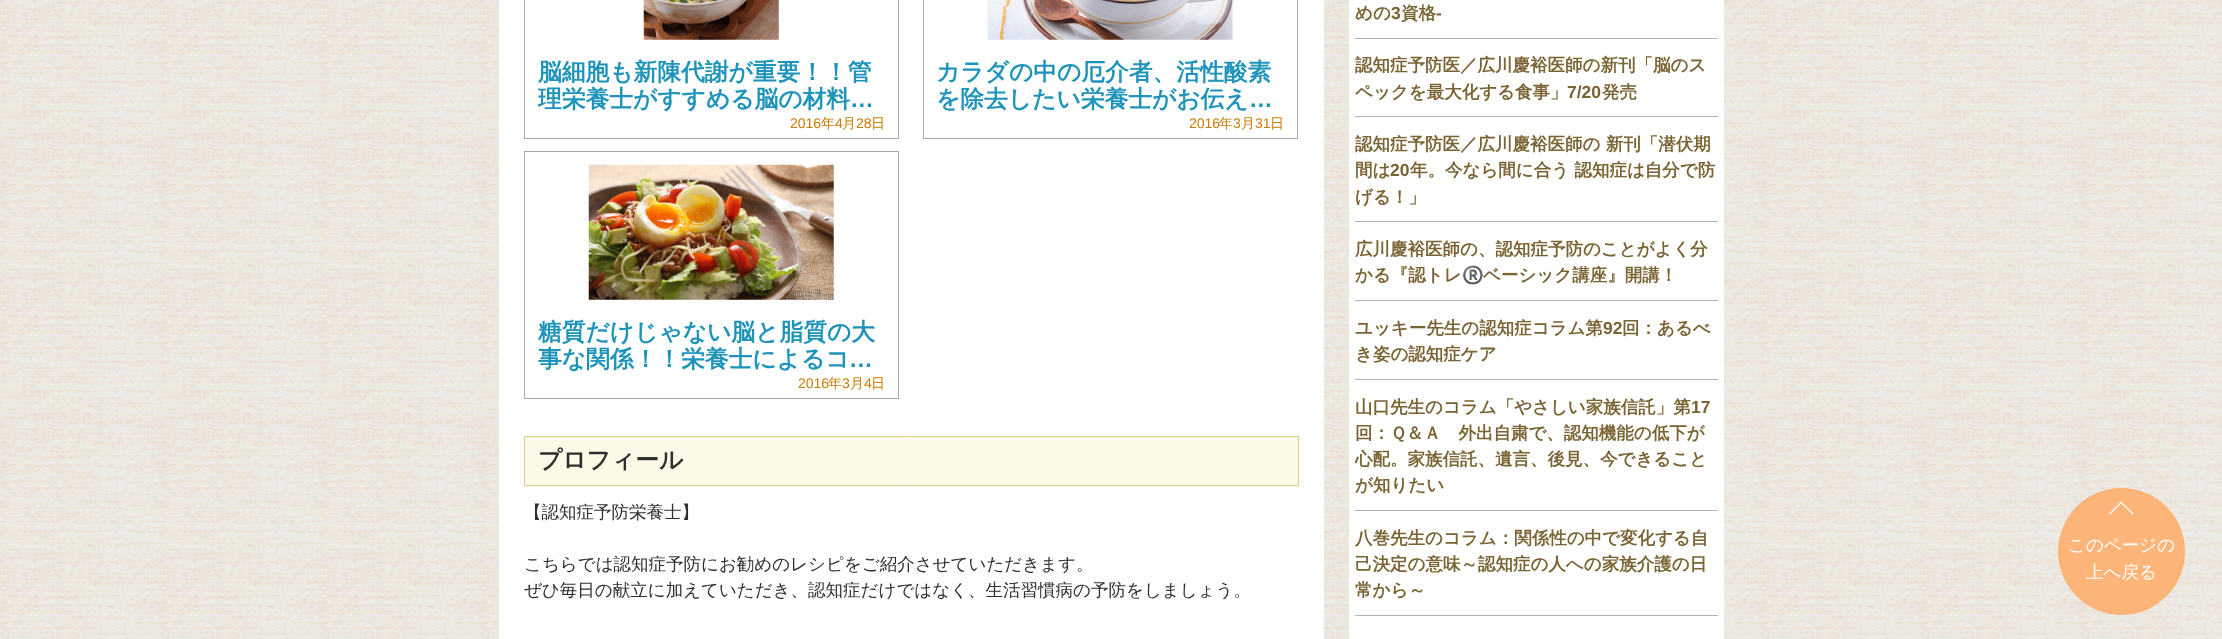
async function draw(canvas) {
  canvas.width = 2222;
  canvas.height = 639;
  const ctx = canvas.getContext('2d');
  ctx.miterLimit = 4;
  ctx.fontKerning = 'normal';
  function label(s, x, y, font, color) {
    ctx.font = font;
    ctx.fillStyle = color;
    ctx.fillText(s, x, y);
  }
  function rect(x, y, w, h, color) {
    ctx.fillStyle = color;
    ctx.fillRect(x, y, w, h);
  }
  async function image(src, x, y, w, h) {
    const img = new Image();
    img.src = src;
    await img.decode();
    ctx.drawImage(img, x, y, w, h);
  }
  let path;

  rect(0, 0, 2222, 639, '#fff');
  await image('assets/img1.png', 0, 0, 2222, 639);
  rect(499, 0, 825, 639, '#fff');
  ctx.strokeStyle = '#a8aaaa';
  ctx.strokeRect(524.5, -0.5, 374, 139);
  await image('assets/img2.png', 643, 0, 136, 40);
  label('脳細胞も新陳代謝が重要！！管', 538, 80, 'bold 23.75px WenQuanYi Zen Hei', '#1f94bb');
  label('理栄養士がすすめる脳の材料', 538, 107, 'bold 23.75px WenQuanYi Zen Hei', '#1f94bb');
  label('…', 850, 107, 'bold 23.75px Liberation Sans', '#1f94bb');
  label('2016', 790, 128, '14px Liberation Sans', '#cb7b02');
  label('年', 821, 128, '500 14px WenQuanYi Zen Hei', '#cb7b02');
  label('4', 835, 128, '14px Liberation Sans', '#cb7b02');
  label('月', 842, 128, '500 14px WenQuanYi Zen Hei', '#cb7b02');
  label('28', 856, 128, '14px Liberation Sans', '#cb7b02');
  label('日', 871, 128, '500 14px WenQuanYi Zen Hei', '#cb7b02');
  ctx.strokeRect(923.5, -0.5, 374, 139);
  await image('assets/img3.png', 987, 0, 246, 40);
  label('カラダの中の厄介者、活性酸素', 936, 80, 'bold 23.75px WenQuanYi Zen Hei', '#1f94bb');
  label('を除去したい栄養士がお伝え', 936, 107, 'bold 23.75px WenQuanYi Zen Hei', '#1f94bb');
  label('…', 1249, 107, 'bold 23.75px Liberation Sans', '#1f94bb');
  label('2016', 1189, 128, '14px Liberation Sans', '#cb7b02');
  label('年', 1219, 128, '500 14px WenQuanYi Zen Hei', '#cb7b02');
  label('3', 1233, 128, '14px Liberation Sans', '#cb7b02');
  label('月', 1241, 128, '500 14px WenQuanYi Zen Hei', '#cb7b02');
  label('31', 1255, 128, '14px Liberation Sans', '#cb7b02');
  label('日', 1270, 128, '500 14px WenQuanYi Zen Hei', '#cb7b02');
  ctx.strokeRect(524.5, 151.5, 374, 247);
  await image('assets/img4.png', 588, 164, 246, 136);
  label('糖質だけじゃない脳と脂質の大', 538, 340, 'bold 23.75px WenQuanYi Zen Hei', '#1f94bb');
  label('事な関係！！栄養士によるコ', 538, 367, 'bold 23.75px WenQuanYi Zen Hei', '#1f94bb');
  label('…', 849, 367, 'bold 23.75px Liberation Sans', '#1f94bb');
  label('2016', 798, 388, '14px Liberation Sans', '#cb7b02');
  label('年', 828, 388, '500 14px WenQuanYi Zen Hei', '#cb7b02');
  label('3', 842, 388, '14px Liberation Sans', '#cb7b02');
  label('月', 850, 388, '500 14px WenQuanYi Zen Hei', '#cb7b02');
  label('4', 864, 388, '14px Liberation Sans', '#cb7b02');
  label('日', 871, 388, '500 14px WenQuanYi Zen Hei', '#cb7b02');
  ctx.fillStyle = '#fcf9e7';
  ctx.beginPath();
  ctx.rect(524.5, 436.5, 774, 49);
  ctx.fill();
  ctx.strokeStyle = '#dcce7d';
  ctx.stroke();
  label('プロフィール', 538, 468, 'bold 23.75px WenQuanYi Zen Hei', '#2f2e2e');
  label('【認知症予防栄養士】', 524, 518, '500 17.5px WenQuanYi Zen Hei', '#2f2e2e');
  label('こちらでは認知症予防にお勧めのレシピをご紹介させていただきます。', 524, 570, '500 17.5px WenQuanYi Zen Hei', '#2f2e2e');
  label('ぜひ毎日の献立に加えていただき、認知症だけではなく、生活習慣病の予防をしましょう。', 524, 596, '500 17.5px WenQuanYi Zen Hei', '#2f2e2e');
  rect(1349, 0, 375, 639, '#fff');
  rect(1355, 38, 363, 1, '#b2b3af');
  label('めの', 1355, 19, 'bold 17.5px WenQuanYi Zen Hei', '#7a6433');
  label('3', 1391, 19, 'bold 17.5px Liberation Sans', '#7a6433');
  label('資格', 1401, 19, 'bold 17.5px WenQuanYi Zen Hei', '#7a6433');
  label('-', 1436, 19, 'bold 17.5px Liberation Sans', '#7a6433');
  rect(1355, 116, 363, 1, '#b2b3af');
  label('認知症予防医／広川慶裕医師の新刊「脳のス', 1355, 71, 'bold 17.5px WenQuanYi Zen Hei', '#7a6433');
  label('ペックを最大化する食事」', 1355, 98, 'bold 17.5px WenQuanYi Zen Hei', '#7a6433');
  label('7/20', 1567, 98, 'bold 17.5px Liberation Sans', '#7a6433');
  label('発売', 1602, 98, 'bold 17.5px WenQuanYi Zen Hei', '#7a6433');
  rect(1355, 221, 363, 1, '#b2b3af');
  label('認知症予防医／広川慶裕医師の 新刊「潜伏期', 1355, 150, 'bold 17.5px WenQuanYi Zen Hei', '#7a6433');
  label('間は', 1355, 176, 'bold 17.5px WenQuanYi Zen Hei', '#7a6433');
  label('20', 1390, 176, 'bold 17.5px Liberation Sans', '#7a6433');
  label('年。今なら間に合う 認知症は自分で防', 1410, 176, 'bold 17.5px WenQuanYi Zen Hei', '#7a6433');
  label('げる！」', 1355, 203, 'bold 17.5px WenQuanYi Zen Hei', '#7a6433');
  rect(1355, 300, 363, 1, '#b2b3af');
  label('広川慶裕医師の、認知症予防のことがよく分', 1355, 255, 'bold 17.5px WenQuanYi Zen Hei', '#7a6433');
  label('かる『認トレ', 1355, 281, 'bold 17.5px WenQuanYi Zen Hei', '#7a6433');
  label('®️', 1462, 281, 'bold 17.5px Noto Color Emoji', '#7a6433');
  label('ベーシック講座』開講！', 1483, 281, 'bold 17.5px WenQuanYi Zen Hei', '#7a6433');
  rect(1355, 379, 363, 1, '#b2b3af');
  label('ユッキー先生の認知症コラム第', 1355, 334, 'bold 17.5px WenQuanYi Zen Hei', '#7a6433');
  label('92', 1603, 334, 'bold 17.5px Liberation Sans', '#7a6433');
  label('回：あるべ', 1622, 334, 'bold 17.5px WenQuanYi Zen Hei', '#7a6433');
  label('き姿の認知症ケア', 1355, 360, 'bold 17.5px WenQuanYi Zen Hei', '#7a6433');
  rect(1355, 510, 363, 1, '#b2b3af');
  label('山口先生のコラム「やさしい家族信託」第', 1355, 413, 'bold 17.5px WenQuanYi Zen Hei', '#7a6433');
  label('17', 1691, 413, 'bold 17.5px Liberation Sans', '#7a6433');
  label('回：Ｑ＆Ａ　外出自粛で、認知機能の低下が', 1355, 439, 'bold 17.5px WenQuanYi Zen Hei', '#7a6433');
  label('心配。家族信託、遺言、後見、今できること', 1355, 465, 'bold 17.5px WenQuanYi Zen Hei', '#7a6433');
  label('が知りたい', 1355, 491, 'bold 17.5px WenQuanYi Zen Hei', '#7a6433');
  rect(1355, 615, 363, 1, '#b2b3af');
  label('八巻先生のコラム：関係性の中で変化する自', 1355, 544, 'bold 17.5px WenQuanYi Zen Hei', '#7a6433');
  label('己決定の意味～認知症の人への家族介護の日', 1355, 570, 'bold 17.5px WenQuanYi Zen Hei', '#7a6433');
  label('常から～', 1355, 596, 'bold 17.5px WenQuanYi Zen Hei', '#7a6433');
  ctx.fillStyle = '#ffaf6ee6';
  ctx.beginPath();
  ctx.arc(2121.5, 551.5, 63, 0, 2 * Math.PI);
  ctx.fill();
  ctx.strokeStyle = '#ffaf6e';
  ctx.stroke();
  ctx.fillStyle = '#fff';
  path = new Path2D('M2109 513.5L2121 501.5L2122 502.5L2110 514.5Z');
  ctx.fill(path);
  path = new Path2D('M2120.5 502.5L2121 501.5L2133.5 513.5L2132.5 514.5Z');
  ctx.fill(path);
  label('このページの', 2068, 551, '500 17.5px WenQuanYi Zen Hei', '#fff');
  label('上へ戻る', 2086, 578, '500 17.5px WenQuanYi Zen Hei', '#fff');
}

draw(document.querySelector('canvas'));
